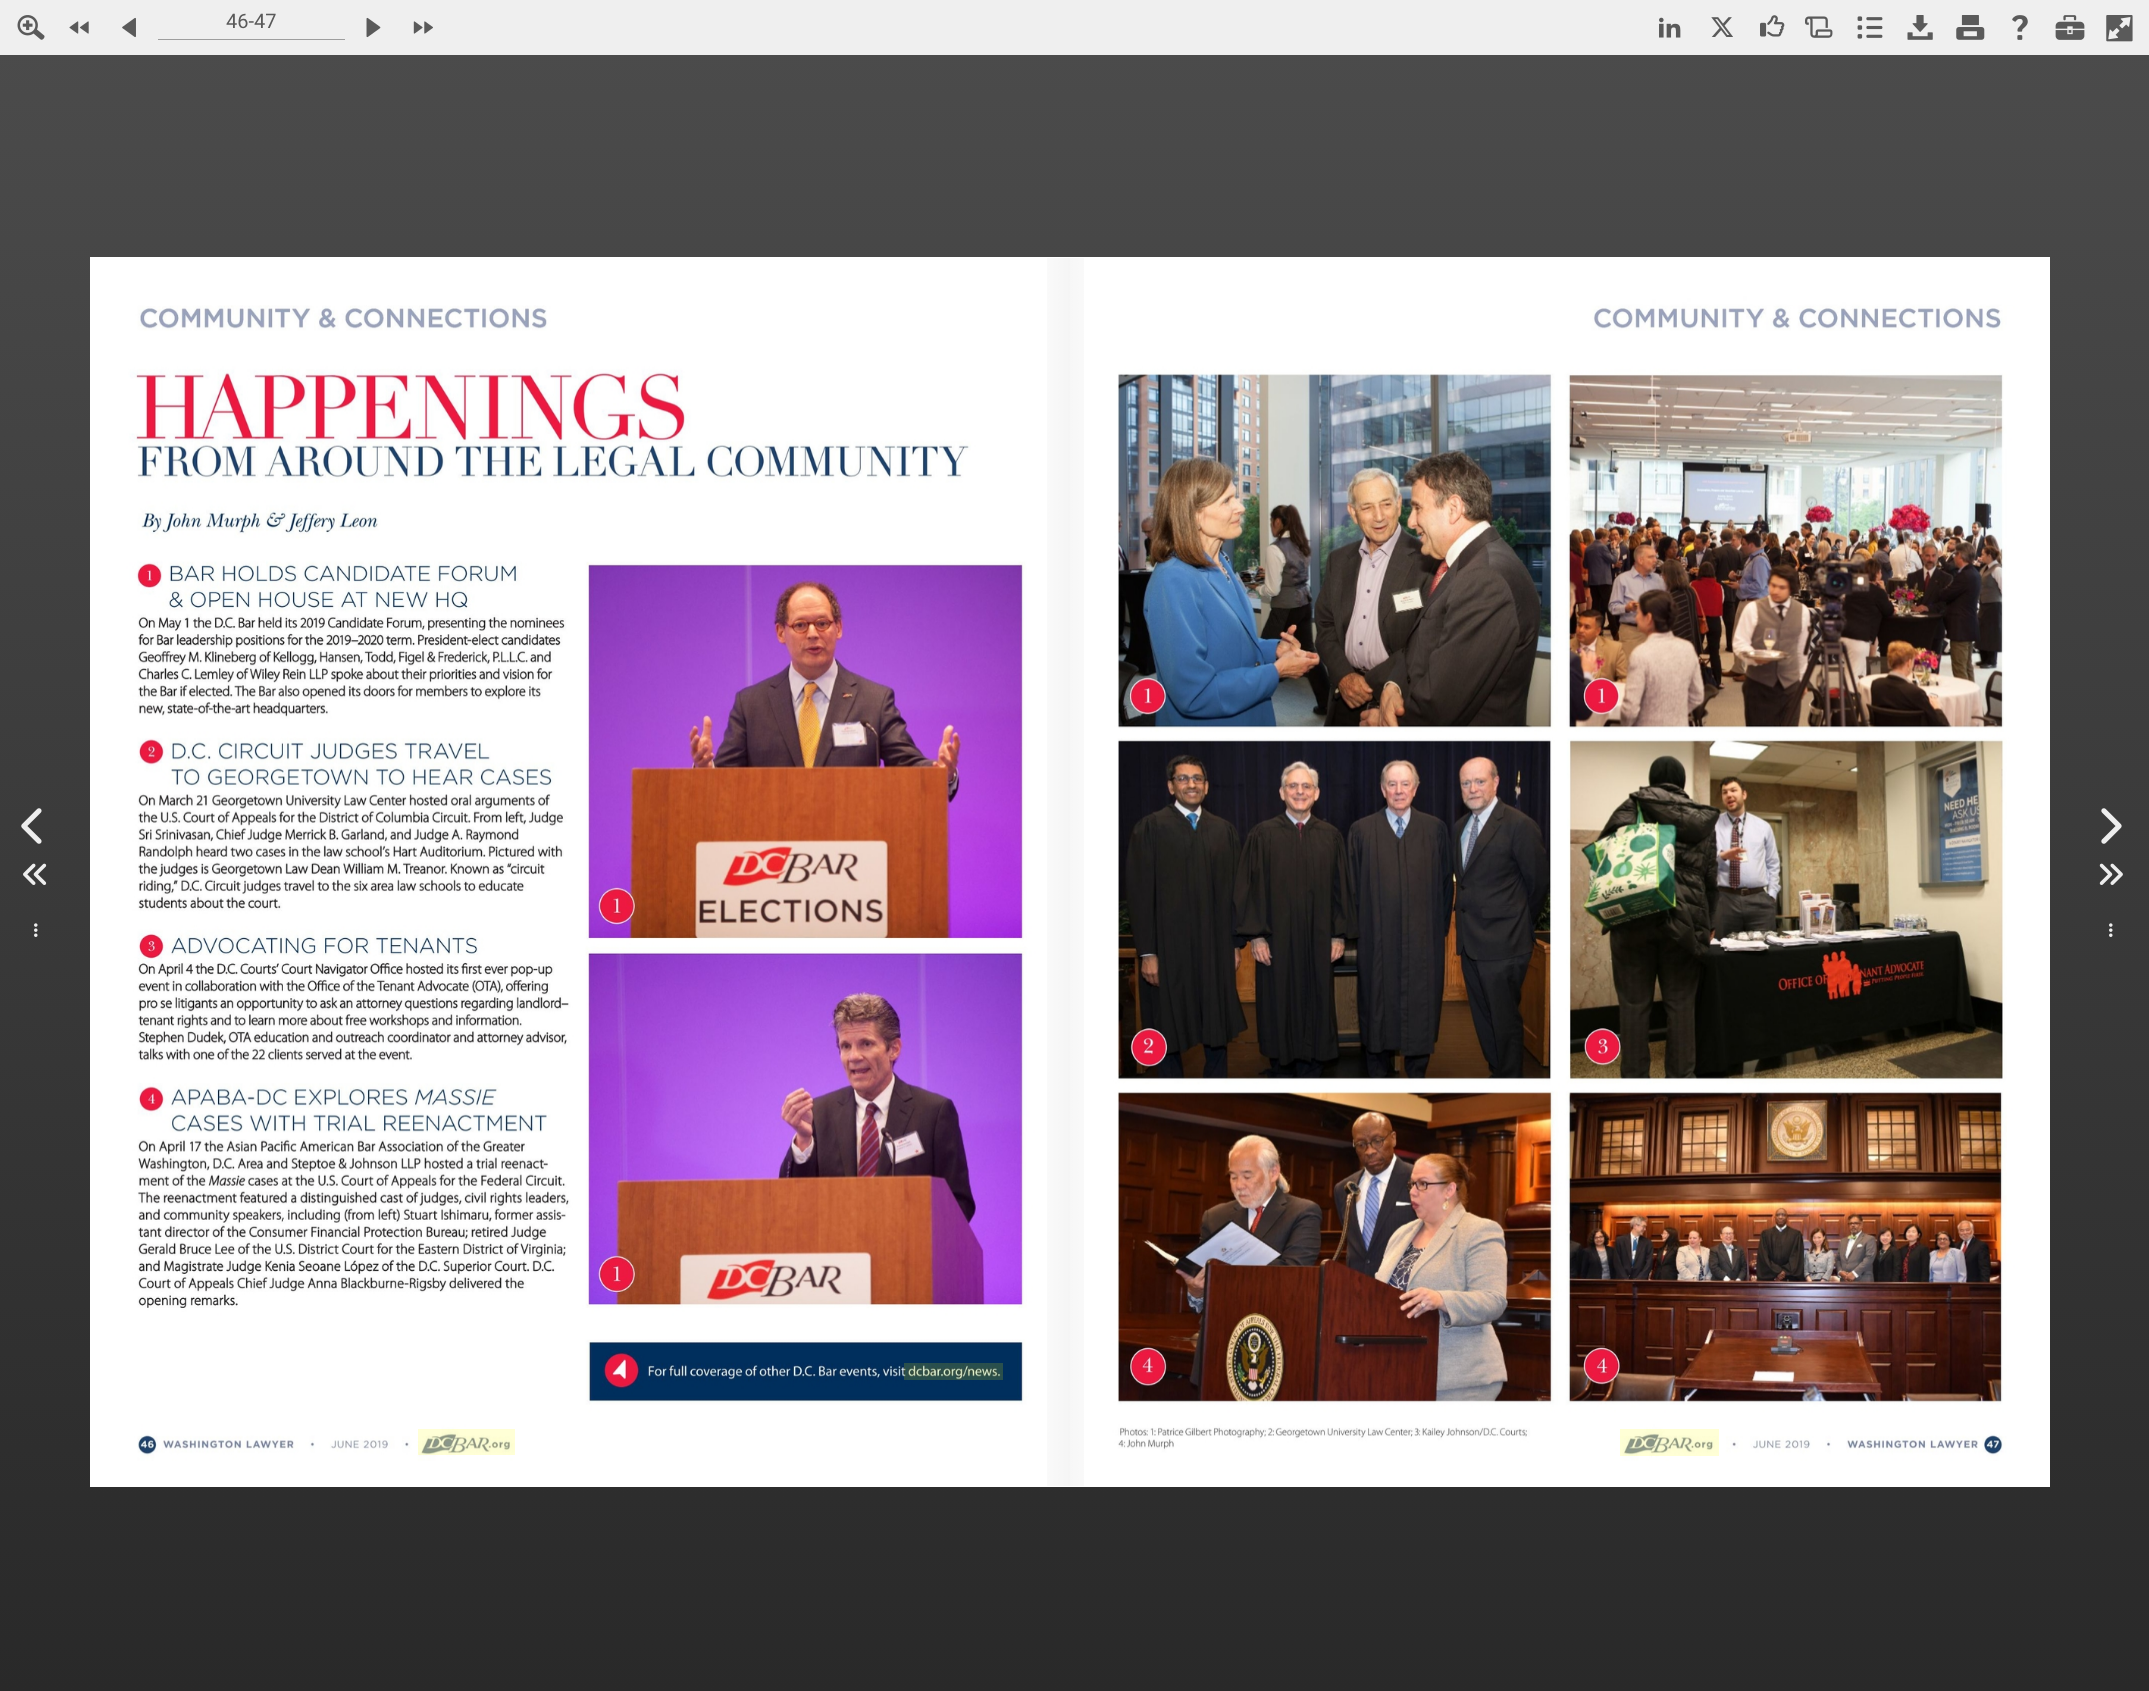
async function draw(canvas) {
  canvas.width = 2149;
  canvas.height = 1691;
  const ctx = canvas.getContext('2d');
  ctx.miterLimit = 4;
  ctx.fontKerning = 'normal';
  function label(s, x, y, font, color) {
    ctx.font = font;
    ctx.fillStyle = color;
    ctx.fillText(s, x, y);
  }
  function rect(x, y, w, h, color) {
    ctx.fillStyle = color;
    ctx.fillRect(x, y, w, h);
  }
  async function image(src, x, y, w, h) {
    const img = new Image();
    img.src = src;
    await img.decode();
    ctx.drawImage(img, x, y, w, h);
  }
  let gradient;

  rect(0, 0, 2149, 1691, '#fff');
  gradient = ctx.createLinearGradient(1075, 0, 1075, 1691);
  gradient.addColorStop(0, '#4c4c4c');
  gradient.addColorStop(1, '#292929');
  ctx.fillStyle = gradient;
  ctx.fillRect(0, 55, 2149, 1636);
  rect(0, 0, 2149, 55, '#efefef');
  await image('assets/img1.png', 17, 15, 28, 25);
  await image('assets/img2.png', 69, 21, 20, 13);
  await image('assets/img3.png', 122, 17, 14, 21);
  rect(158, 39, 187, 1, '#9e9e9e');
  label('46-47', 226, 28, '20px Roboto', '#5a5a5a');
  await image('assets/img4.png', 366, 17, 15, 21);
  await image('assets/img5.png', 413, 21, 20, 13);
  await image('assets/img6.png', 1659, 17, 22, 21);
  await image('assets/img7.png', 1711, 17, 22, 20);
  await image('assets/img8.png', 1760, 15, 25, 22);
  await image('assets/img9.png', 1805, 16, 28, 22);
  await image('assets/img10.png', 1857, 16, 26, 23);
  await image('assets/img11.png', 1907, 15, 26, 25);
  await image('assets/img12.png', 1956, 15, 29, 25);
  await image('assets/img13.png', 2012, 15, 16, 25);
  await image('assets/img14.png', 2055, 15, 30, 25);
  await image('assets/img15.png', 2106, 15, 27, 27);
  await image('assets/img16.png', 21, 808, 21, 36);
  await image('assets/img17.png', 23, 863, 24, 22);
  await image('assets/img18.png', 34, 923, 4, 14);
  await image('assets/img19.png', 90, 257, 980, 1);
  await image('assets/img20.png', 1070, 257, 980, 49);
  await image('assets/img21.png', 1070, 306, 980, 1181);
  gradient = ctx.createLinearGradient(2050, 873, 1070, 873);
  gradient.addColorStop(0.95, '#00000000');
  gradient.addColorStop(1, '#00000008');
  ctx.fillStyle = gradient;
  ctx.fillRect(1070, 258, 14, 1228);
  rect(1620, 1429, 99, 27, '#ffff0029');
  rect(90, 258, 980, 47, '#fff');
  await image('assets/img22.png', 90, 305, 980, 1182);
  gradient = ctx.createLinearGradient(90, 873, 1070, 873);
  gradient.addColorStop(0.95, '#00000000');
  gradient.addColorStop(1, '#0000000a');
  ctx.fillStyle = gradient;
  ctx.fillRect(1047, 258, 23, 1228);
  rect(904, 1363, 99, 17, '#ffff0029');
  rect(418, 1429, 97, 26, '#ffff0029');
  await image('assets/img23.png', 2101, 808, 21, 36);
  await image('assets/img24.png', 2099, 863, 24, 22);
  await image('assets/img18.png', 2109, 923, 4, 14);
}

draw(document.querySelector('canvas'));
